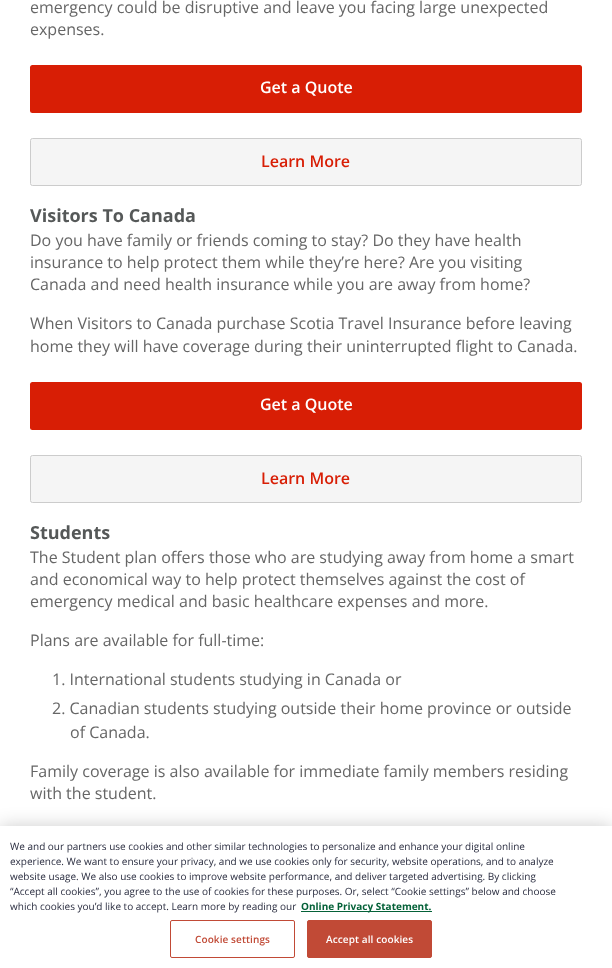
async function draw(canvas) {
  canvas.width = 612;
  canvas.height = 968;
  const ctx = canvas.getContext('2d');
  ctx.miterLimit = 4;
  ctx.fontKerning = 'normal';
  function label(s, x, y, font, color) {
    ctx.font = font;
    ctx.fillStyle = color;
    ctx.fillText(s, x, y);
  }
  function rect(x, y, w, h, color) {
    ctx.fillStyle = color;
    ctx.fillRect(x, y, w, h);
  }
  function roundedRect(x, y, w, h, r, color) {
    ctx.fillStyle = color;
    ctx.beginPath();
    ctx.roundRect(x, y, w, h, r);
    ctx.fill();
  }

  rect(0, 0, 612, 968, '#fff');
  label('emergency could be disruptive and leave you facing large unexpected', 30, 13, '16px Open Sans', '#666');
  label('expenses.', 30, 35, '16px Open Sans', '#666');
  roundedRect(30, 65, 552, 48, 2.5, '#d81e05');
  label('Get a Quote', 260, 93, '600 16px Open Sans', '#fff');
  ctx.fillStyle = '#f5f5f5';
  ctx.beginPath();
  ctx.roundRect(30.5, 138.5, 551, 47, 2);
  ctx.fill();
  ctx.strokeStyle = '#ccc';
  ctx.stroke();
  label('Learn More', 261, 167, '600 16px Open Sans', '#d81e05');
  label('Visitors To Canada', 30, 222, 'bold 18px Open Sans', '#555858');
  label('Do you have family or friends coming to stay? Do they have health', 30, 246, '16px Open Sans', '#666');
  label('insurance to help protect them while they’re here? Are you visiting', 30, 268, '16px Open Sans', '#666');
  label('Canada and need health insurance while you are away from home?', 30, 290, '16px Open Sans', '#666');
  label('When Visitors to Canada purchase Scotia Travel Insurance before leaving', 30, 329, '16px Open Sans', '#666');
  label('home they will have coverage during their uninterrupted flight to Canada.', 30, 352, '16px Open Sans', '#666');
  roundedRect(30, 382, 552, 48, 2.5, '#d81e05');
  label('Get a Quote', 260, 410, '600 16px Open Sans', '#fff');
  ctx.fillStyle = '#f5f5f5';
  ctx.beginPath();
  ctx.roundRect(30.5, 455.5, 551, 47, 2);
  ctx.fill();
  ctx.stroke();
  label('Learn More', 261, 484, '600 16px Open Sans', '#d81e05');
  label('Students', 30, 539, 'bold 18px Open Sans', '#555858');
  label('The Student plan offers those who are studying away from home a smart', 30, 563, '16px Open Sans', '#666');
  label('and economical way to help protect themselves against the cost of', 30, 585, '16px Open Sans', '#666');
  label('emergency medical and basic healthcare expenses and more.', 30, 607, '16px Open Sans', '#666');
  label('Plans are available for full-time:', 30, 646, '16px Open Sans', '#666');
  label('1. International students studying in Canada or', 52, 685, '16px Open Sans', '#666');
  label('2. Canadian students studying outside their home province or outside', 52, 714, '16px Open Sans', '#666');
  label('of Canada.', 70, 738, '16px Open Sans', '#666');
  label('Family coverage is also available for immediate family members residing', 30, 777, '16px Open Sans', '#666');
  label('with the student.', 30, 799, '16px Open Sans', '#666');
  ctx.fillStyle = '#00000033';
  ctx.filter = 'blur(9px)';
  ctx.beginPath();
  ctx.rect(0, 826, 612, 142);
  ctx.fill();
  ctx.filter = 'none';
  rect(0, 826, 612, 142, '#fff');
  label('We and our partners use cookies and other similar technologies to personalize and enhance your digital online', 10, 850, '10px Open Sans', '#282b3e');
  label('experience. We want to ensure your privacy, and we use cookies only for security, website operations, and to analyze', 10, 865, '10px Open Sans', '#282b3e');
  label('website usage. We also use cookies to improve website performance, and deliver targeted advertising. By clicking', 10, 880, '10px Open Sans', '#282b3e');
  label('“Accept all cookies”, you agree to the use of cookies for these purposes. Or, select “Cookie settings” below and choose', 10, 895, '10px Open Sans', '#282b3e');
  label('which cookies you’d like to accept. Learn more by reading our', 10, 910, '10px Open Sans', '#282b3e');
  rect(301, 911, 131, 1, '#046138');
  label('Online Privacy Statement.', 301, 910, 'bold 10px Open Sans', '#046138');
  ctx.beginPath();
  ctx.roundRect(170.5, 920.5, 124, 37, 1.5);
  ctx.strokeStyle = '#c14a36';
  ctx.stroke();
  ctx.letterSpacing = '0.1px';
  label('Cookie settings', 195, 943, '600 10px Open Sans', '#c14a36');
  ctx.beginPath();
  ctx.roundRect(307.5, 920.5, 124, 37, 1.5);
  ctx.fill();
  ctx.stroke();
  label('Accept all cookies', 326, 943, '600 10px Open Sans', '#fff');
}

draw(document.querySelector('canvas'));
